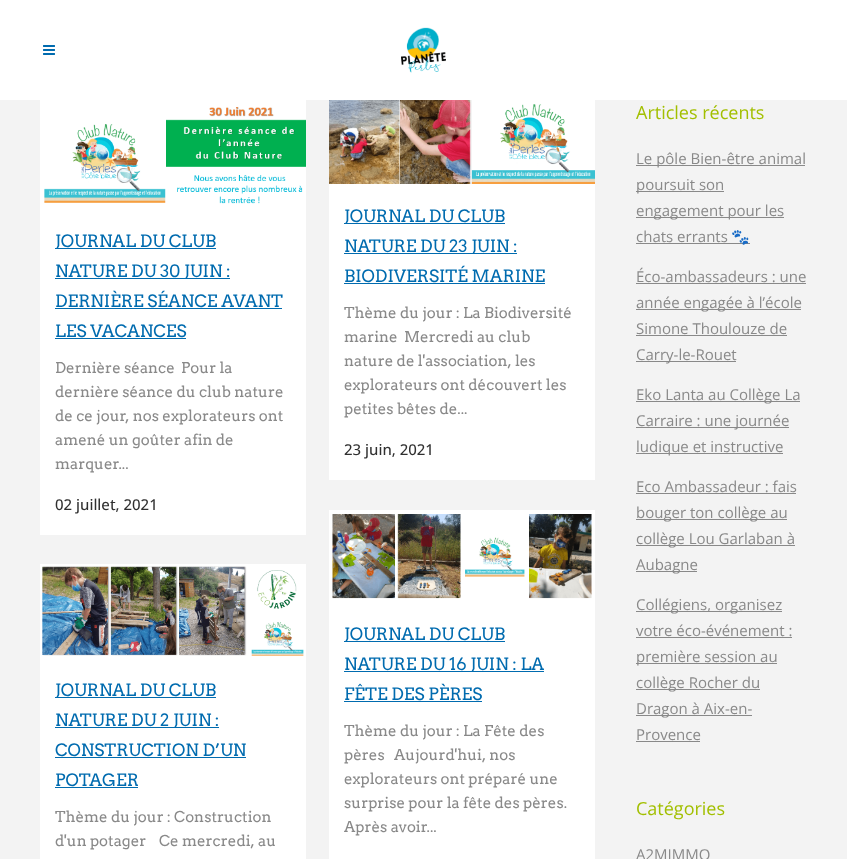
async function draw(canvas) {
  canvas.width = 847;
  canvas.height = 859;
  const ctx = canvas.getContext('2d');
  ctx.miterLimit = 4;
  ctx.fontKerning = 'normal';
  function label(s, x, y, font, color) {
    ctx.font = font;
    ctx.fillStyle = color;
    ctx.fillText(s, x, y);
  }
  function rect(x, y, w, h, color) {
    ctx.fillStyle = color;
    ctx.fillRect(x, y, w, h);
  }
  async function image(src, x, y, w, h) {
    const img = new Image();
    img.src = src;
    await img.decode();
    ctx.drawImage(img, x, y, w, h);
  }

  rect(0, 0, 847, 859, '#f3f3f3');
  rect(0, 0, 847, 100, '#fff');
  await image('assets/img1.png', 43, 45, 12, 10);
  await image('assets/img2.png', 401, 27, 45, 46);
  await image('assets/img3.png', 40, 100, 266, 109);
  rect(40, 209, 266, 326, '#fff');
  rect(55, 248, 161, 1, '#006baf');
  label('JOURNAL DU CLUB', 55, 247, '17px Arvo', '#006baf');
  rect(55, 278, 175, 1, '#006baf');
  label('NATURE DU 30 JUIN :', 55, 277, '17px Arvo', '#006baf');
  label('DERNIÈRE SÉANCE AVANT', 55, 307, '17px Arvo', '#006baf');
  rect(55, 308, 227, 1, '#006baf');
  label('LES VACANCES', 55, 337, '17px Arvo', '#006baf');
  rect(55, 338, 131, 1, '#006baf');
  label('Dernière séance', 55, 373, '15px Arvo', '#898989');
  label('Pour la', 181, 373, '15px Arvo', '#898989');
  label('dernière séance du club nature', 55, 397, '15px Arvo', '#898989');
  label('de ce jour, nos explorateurs ont', 55, 421, '15px Arvo', '#898989');
  label('amené un goûter afin de', 55, 445, '15px Arvo', '#898989');
  label('marquer...', 55, 469, '15px Arvo', '#898989');
  label('02 juillet, 2021', 55, 510, '500 15px Open Sans', '#303030');
  await image('assets/img4.png', 329, 100, 266, 84);
  rect(329, 184, 266, 296, '#fff');
  rect(344, 223, 161, 1, '#006baf');
  label('JOURNAL DU CLUB', 344, 222, '17px Arvo', '#006baf');
  rect(344, 253, 173, 1, '#006baf');
  label('NATURE DU 23 JUIN :', 344, 252, '17px Arvo', '#006baf');
  label('BIODIVERSITÉ MARINE', 344, 282, '17px Arvo', '#006baf');
  rect(344, 283, 201, 1, '#006baf');
  label('Thème du jour : La Biodiversité', 344, 318, '15px Arvo', '#898989');
  label('marine', 344, 342, '15px Arvo', '#898989');
  label('Mercredi au club', 404, 342, '15px Arvo', '#898989');
  label('nature de l\'association, les', 344, 366, '15px Arvo', '#898989');
  label('explorateurs ont découvert les', 344, 390, '15px Arvo', '#898989');
  label('petites bêtes de...', 344, 414, '15px Arvo', '#898989');
  label('23 juin, 2021', 344, 455, '500 15px Open Sans', '#303030');
  await image('assets/img5.png', 40, 564, 266, 94);
  rect(40, 658, 266, 201, '#fff');
  rect(55, 697, 161, 1, '#006baf');
  label('JOURNAL DU CLUB', 55, 696, '17px Arvo', '#006baf');
  rect(55, 727, 164, 1, '#006baf');
  label('NATURE DU 2 JUIN :', 55, 726, '17px Arvo', '#006baf');
  label('CONSTRUCTION D’UN', 55, 756, '17px Arvo', '#006baf');
  rect(55, 757, 191, 1, '#006baf');
  label('POTAGER', 55, 786, '17px Arvo', '#006baf');
  rect(55, 787, 83, 1, '#006baf');
  label('Thème du jour : Construction', 55, 822, '15px Arvo', '#898989');
  label('d\'un potager', 55, 846, '15px Arvo', '#898989');
  label('Ce mercredi, au', 159, 846, '15px Arvo', '#898989');
  await image('assets/img6.png', 329, 510, 266, 92);
  rect(329, 602, 266, 257, '#fff');
  rect(344, 641, 161, 1, '#006baf');
  label('JOURNAL DU CLUB', 344, 640, '17px Arvo', '#006baf');
  rect(344, 671, 200, 1, '#006baf');
  label('NATURE DU 16 JUIN : LA', 344, 670, '17px Arvo', '#006baf');
  label('FÊTE DES PÈRES', 344, 700, '17px Arvo', '#006baf');
  rect(344, 701, 138, 1, '#006baf');
  label('Thème du jour : La Fête des', 344, 736, '15px Arvo', '#898989');
  label('pères', 344, 760, '15px Arvo', '#898989');
  label('Aujourd\'hui, nos', 394, 760, '15px Arvo', '#898989');
  label('explorateurs ont préparé une', 344, 784, '15px Arvo', '#898989');
  label('surprise pour la fête des pères.', 344, 808, '15px Arvo', '#898989');
  label('Après avoir...', 344, 832, '15px Arvo', '#898989');
  label('Articles récents', 636, 119, '18px Open Sans', '#a2bf00');
  rect(636, 165, 169, 1, '#898989');
  label('Le pôle Bien-être animal', 636, 164, '15px Open Sans', '#898989');
  rect(636, 191, 88, 1, '#898989');
  label('poursuit son', 636, 190, '15px Open Sans', '#898989');
  rect(636, 217, 148, 1, '#898989');
  label('engagement pour les', 636, 216, '15px Open Sans', '#898989');
  label('chats errants', 636, 242, '15px Open Sans', '#898989');
  rect(636, 243, 114, 1, '#898989');
  label('🐾', 731, 242, '15px Noto Color Emoji', '#898989');
  label('Éco-ambassadeurs : une', 636, 282, '15px Open Sans', '#898989');
  rect(636, 283, 170, 1, '#898989');
  rect(636, 309, 165, 1, '#898989');
  label('année engagée à l’école', 636, 308, '15px Open Sans', '#898989');
  label('Simone Thoulouze de', 636, 334, '15px Open Sans', '#898989');
  rect(636, 335, 151, 1, '#898989');
  rect(636, 361, 100, 1, '#898989');
  label('Carry-le-Rouet', 636, 360, '15px Open Sans', '#898989');
  rect(636, 401, 164, 1, '#898989');
  label('Eko Lanta au Collège La', 636, 400, '15px Open Sans', '#898989');
  rect(636, 427, 153, 1, '#898989');
  label('Carraire : une journée', 636, 426, '15px Open Sans', '#898989');
  rect(636, 453, 147, 1, '#898989');
  label('ludique et instructive', 636, 452, '15px Open Sans', '#898989');
  label('Eco Ambassadeur : fais', 636, 492, '15px Open Sans', '#898989');
  rect(636, 493, 160, 1, '#898989');
  rect(636, 519, 151, 1, '#898989');
  label('bouger ton collège au', 636, 518, '15px Open Sans', '#898989');
  rect(636, 545, 159, 1, '#898989');
  label('collège Lou Garlaban à', 636, 544, '15px Open Sans', '#898989');
  rect(636, 571, 61, 1, '#898989');
  label('Aubagne', 636, 570, '15px Open Sans', '#898989');
  rect(636, 611, 146, 1, '#898989');
  label('Collégiens, organisez', 636, 610, '15px Open Sans', '#898989');
  label('votre éco-événement :', 636, 636, '15px Open Sans', '#898989');
  rect(636, 637, 156, 1, '#898989');
  rect(636, 663, 141, 1, '#898989');
  label('première session au', 636, 662, '15px Open Sans', '#898989');
  rect(636, 689, 124, 1, '#898989');
  label('collège Rocher du', 636, 688, '15px Open Sans', '#898989');
  rect(636, 715, 116, 1, '#898989');
  label('Dragon à Aix-en-', 636, 714, '15px Open Sans', '#898989');
  label('Provence', 636, 740, '15px Open Sans', '#898989');
  rect(636, 741, 64, 1, '#898989');
  label('Catégories', 636, 815, '18px Open Sans', '#a2bf00');
  label('A2MIMMO', 636, 860, '15px Open Sans', '#898989');
}

draw(document.querySelector('canvas'));
